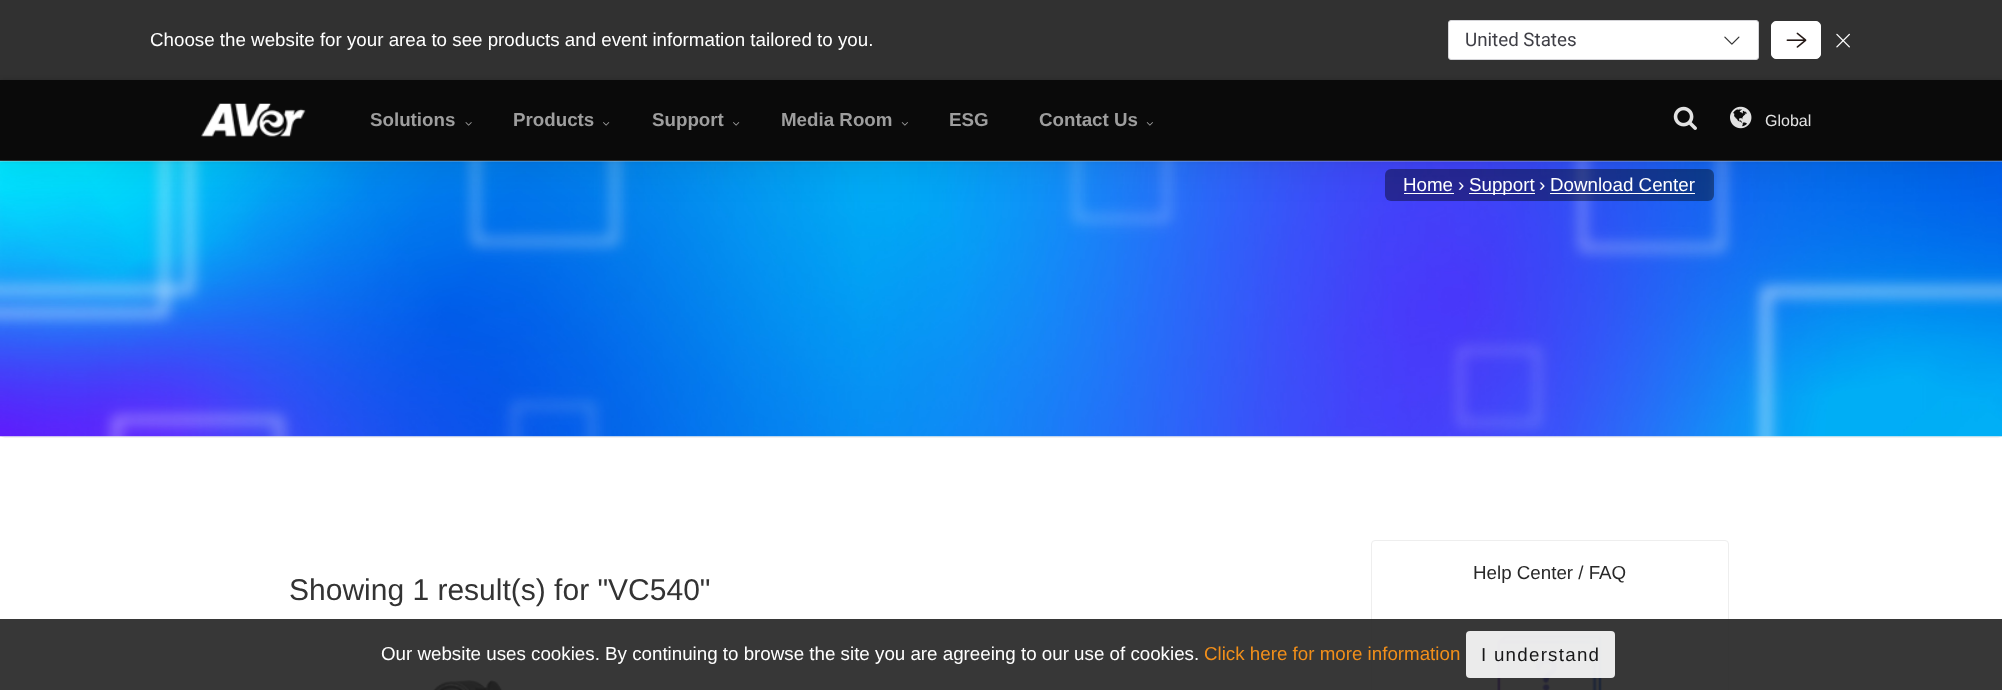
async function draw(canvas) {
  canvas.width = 2002;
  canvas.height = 690;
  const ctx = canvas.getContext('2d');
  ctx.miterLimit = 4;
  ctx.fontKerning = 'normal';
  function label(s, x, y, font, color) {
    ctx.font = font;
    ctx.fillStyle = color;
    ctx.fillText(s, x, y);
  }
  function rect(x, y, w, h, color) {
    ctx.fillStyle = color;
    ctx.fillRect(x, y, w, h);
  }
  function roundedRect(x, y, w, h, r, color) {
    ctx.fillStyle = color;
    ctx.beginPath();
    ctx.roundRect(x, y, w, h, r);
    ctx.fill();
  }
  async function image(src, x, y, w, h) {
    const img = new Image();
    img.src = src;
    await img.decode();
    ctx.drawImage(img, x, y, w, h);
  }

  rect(0, 0, 2002, 690, '#fff');
  ctx.fillStyle = '#0000000d';
  ctx.filter = 'blur(0.5px)';
  ctx.beginPath();
  ctx.roundRect(0, 163, 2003, 275, 5);
  ctx.fill();
  ctx.filter = 'none';
  await image('assets/img10.png', 0, 161, 2002, 276);
  roundedRect(1385, 169, 329, 32, 6, '#00000066');
  rect(1404, 193, 50, 1, '#fff');
  rect(1469, 193, 66, 1, '#fff');
  rect(1550, 193, 145, 1, '#fff');
  ctx.fillStyle = '#0000001a';
  ctx.filter = 'blur(21px)';
  ctx.beginPath();
  ctx.rect(0, 1, 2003, 162);
  ctx.fill();
  ctx.filter = 'none';
  rect(0, 160, 2002, 1, '#333');
  rect(0, 0, 2002, 80, '#313131');
  label('Choose the website for your area to see products and event information tailored to you.', 150, 46, '18.75px Liberation Sans', '#fff');
  ctx.beginPath();
  ctx.roundRect(1448.5, 20.5, 310, 39, 2.5);
  ctx.fill();
  ctx.strokeStyle = '#d4d4d8';
  ctx.stroke();
  label('United States', 1465, 46, '18.75px Roboto', '#3f3f46');
  await image('assets/img1.png', 1724, 36, 16, 9);
  ctx.fillStyle = '#fff';
  ctx.beginPath();
  ctx.roundRect(1771.5, 21.5, 49, 37, 4.5);
  ctx.fill();
  ctx.strokeStyle = '#fff';
  ctx.stroke();
  await image('assets/img2.png', 1786, 32, 21, 16);
  await image('assets/img3.png', 1836, 33, 14, 15);
  ctx.fillStyle = '#00000029';
  ctx.filter = 'blur(2.5px)';
  ctx.beginPath();
  ctx.rect(0, 80, 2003, 80);
  ctx.fill();
  ctx.filter = 'none';
  rect(0, 80, 2002, 80, '#0a0a0a');
  await image('assets/img4.png', 201, 103, 105, 34);
  label('Solutions', 370, 126, 'bold 18.75px Liberation Sans', '#9e9e9e');
  await image('assets/img5.png', 465, 122, 7, 4);
  label('Products', 513, 126, 'bold 18.75px Liberation Sans', '#9e9e9e');
  await image('assets/img6.png', 603, 122, 7, 4);
  label('Support', 652, 126, 'bold 18.75px Liberation Sans', '#9e9e9e');
  await image('assets/img6.png', 733, 122, 7, 4);
  label('Media Room', 781, 126, 'bold 18.75px Liberation Sans', '#9e9e9e');
  await image('assets/img7.png', 901, 122, 7, 4);
  label('ESG', 949, 126, 'bold 18.75px Liberation Sans', '#9e9e9e');
  label('Contact Us', 1039, 126, 'bold 18.75px Liberation Sans', '#9e9e9e');
  await image('assets/img7.png', 1146, 122, 7, 4);
  await image('assets/img8.png', 1673, 106, 24, 24);
  await image('assets/img9.png', 1730, 106, 22, 23);
  label('Global', 1765, 126, '16px Liberation Sans', '#e2e2e2');
  label('Home', 1403, 191, '18.75px Liberation Sans', '#fff');
  label('›', 1458, 191, '18.75px Liberation Sans', '#fff');
  label('Support', 1469, 191, '18.75px Liberation Sans', '#fff');
  label('›', 1539, 191, '18.75px Liberation Sans', '#fff');
  label('Download Center', 1550, 191, '18.75px Liberation Sans', '#fff');
  ctx.beginPath();
  ctx.roundRect(1371.5, 540.5, 357, 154, 3.5);
  ctx.strokeStyle = '#eee';
  ctx.stroke();
  label('Help Center / FAQ', 1473, 579, '18.75px Liberation Sans', '#282828');
  await image('assets/img11.png', 1497, 633, 105, 57);
  label('Showing 1 result(s) for "VC540"', 289, 600, '30px Liberation Sans', '#333');
  await image('assets/img12.png', 433, 679, 70, 11);
  rect(0, 619, 2002, 71, '#212121e6');
  label('Our website uses cookies. By continuing to browse the site you are agreeing to our use of cookies.', 381, 660, '18.75px Liberation Sans', '#fff');
  label('Click here for more information', 1204, 660, '18.75px Liberation Sans', '#f28f1a');
  roundedRect(1466, 631, 149, 47, 4, '#ffffffe6');
  ctx.letterSpacing = '1.25px';
  label('I understand', 1481, 661, '18.75px Liberation Sans', '#171718');
}

draw(document.querySelector('canvas'));
